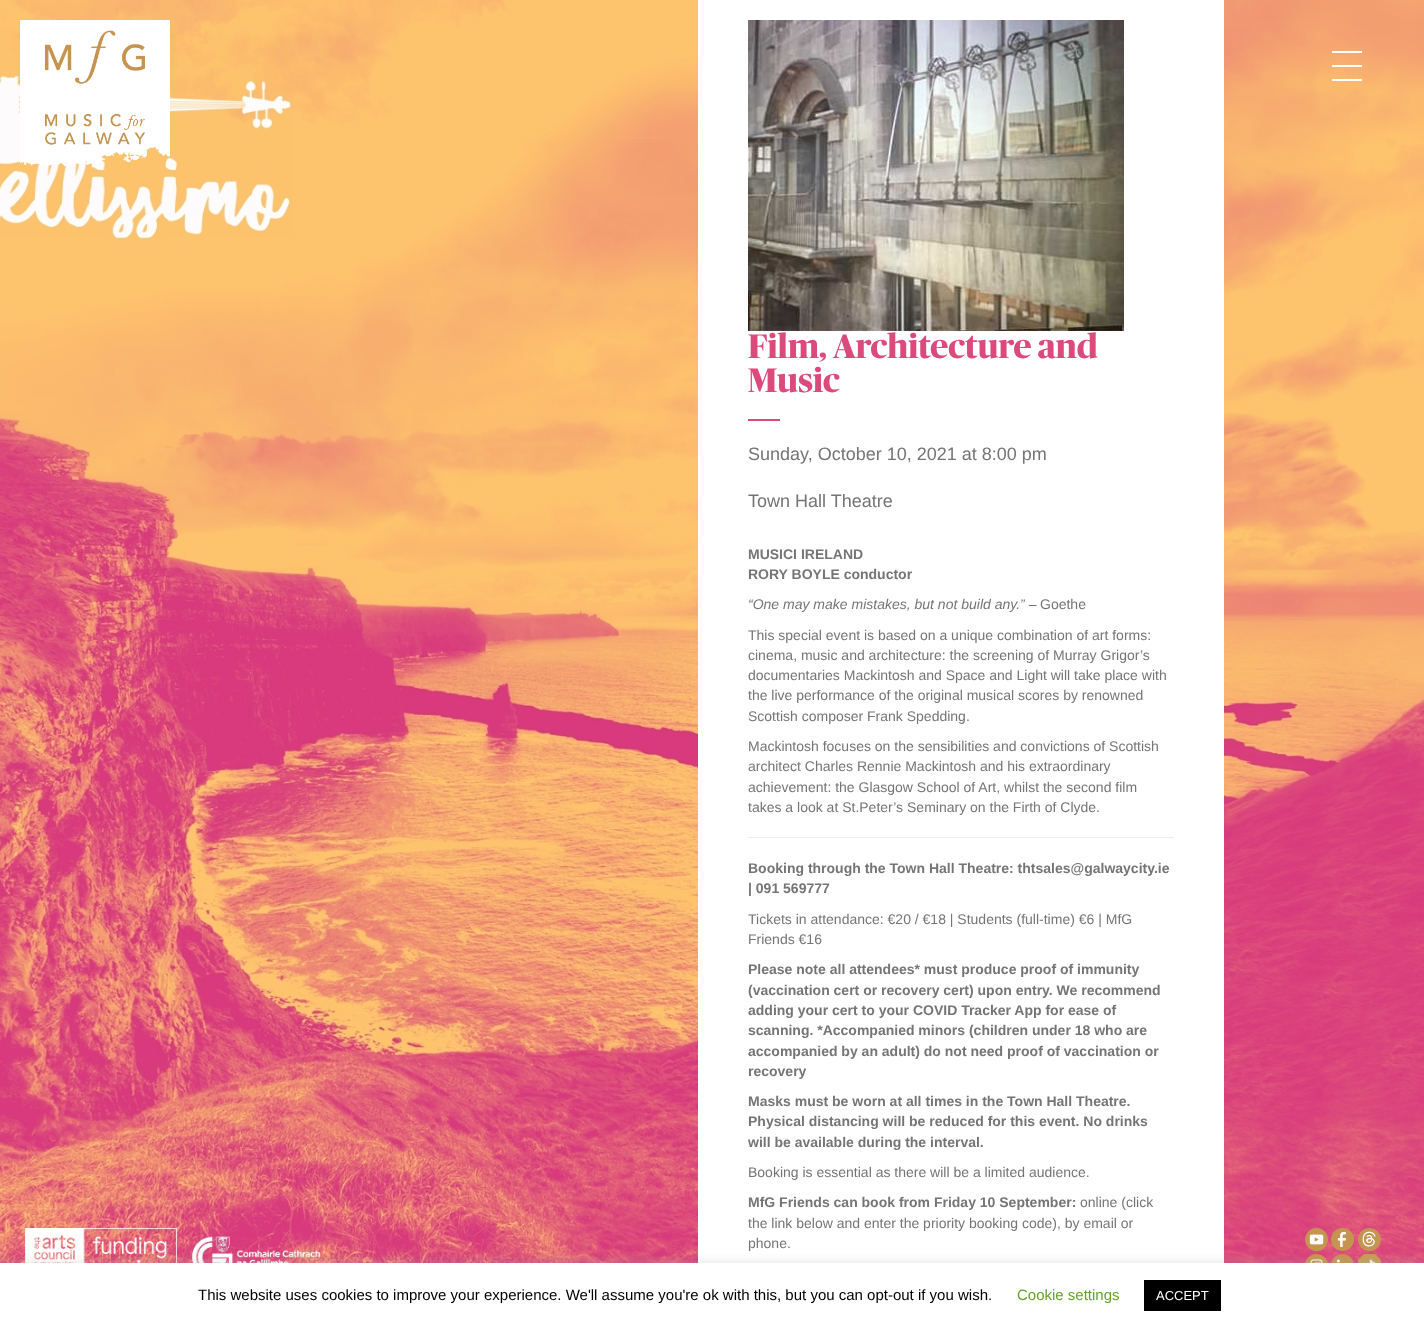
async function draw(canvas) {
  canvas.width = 1424;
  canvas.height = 1328;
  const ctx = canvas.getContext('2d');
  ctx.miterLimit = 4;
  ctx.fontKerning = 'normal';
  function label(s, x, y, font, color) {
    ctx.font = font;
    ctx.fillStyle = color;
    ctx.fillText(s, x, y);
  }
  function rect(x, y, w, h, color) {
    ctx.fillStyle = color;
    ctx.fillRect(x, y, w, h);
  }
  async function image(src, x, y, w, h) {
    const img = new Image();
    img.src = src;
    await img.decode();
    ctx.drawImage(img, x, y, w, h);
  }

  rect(0, 0, 1424, 1328, '#fff');
  await image('assets/img5.png', 0, 0, 1424, 1263);
  await image('assets/img1.png', 20, 20, 150, 148);
  await image('assets/img2.png', 1332, 51, 30, 30);
  await image('assets/img3.png', 25, 1228, 152, 35);
  await image('assets/img4.png', 191, 1236, 130, 27);
  rect(698, 0, 526, 1263, '#fff');
  await image('assets/img6.png', 748, 20, 376, 311);
  label('Film, Architecture and', 748, 358, 'bold 34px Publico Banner', '#dc4a7b');
  label('Music', 748, 392, 'bold 34px Publico Banner', '#dc4a7b');
  rect(748, 419, 32, 2, '#dc4a7b');
  label('Sunday, October 10, 2021 at 8:00 pm', 748, 460, '18px Liberation Sans', '#757575');
  label('Town Hall Theatre', 748, 507, '18px Liberation Sans', '#757575');
  label('MUSICI IRELAND', 748, 559, 'bold 14px Liberation Sans', '#757575');
  label('RORY BOYLE conductor', 748, 579, 'bold 14px Liberation Sans', '#757575');
  label('“One may make mistakes, but not build any.” –', 748, 609, 'italic 14px Liberation Sans', '#757575');
  label('Goethe', 1040, 609, '14px Liberation Sans', '#757575');
  label('This special event is based on a unique combination of art forms:', 748, 640, '14px Liberation Sans', '#757575');
  label('cinema, music and architecture: the screening of Murray Grigor’s', 748, 660, '14px Liberation Sans', '#757575');
  label('documentaries Mackintosh and Space and Light will take place with', 748, 680, '14px Liberation Sans', '#757575');
  label('the live performance of the original musical scores by renowned', 748, 700, '14px Liberation Sans', '#757575');
  label('Scottish composer Frank Spedding.', 748, 721, '14px Liberation Sans', '#757575');
  label('Mackintosh focuses on the sensibilities and convictions of Scottish', 748, 751, '14px Liberation Sans', '#757575');
  label('architect Charles Rennie Mackintosh and his extraordinary', 748, 771, '14px Liberation Sans', '#757575');
  label('achievement: the Glasgow School of Art, whilst the second film', 748, 792, '14px Liberation Sans', '#757575');
  label('takes a look at St.Peter’s Seminary on the Firth of Clyde.', 748, 812, '14px Liberation Sans', '#757575');
  rect(748, 837, 426, 1, '#eee');
  label('Booking through the Town Hall Theatre: thtsales@galwaycity.ie', 748, 873, 'bold 14px Liberation Sans', '#757575');
  label('| 091 569777', 748, 893, 'bold 14px Liberation Sans', '#757575');
  label('Tickets in attendance: €20 / €18 | Students (full-time) €6 | MfG', 748, 924, '14px Liberation Sans', '#757575');
  label('Friends €16', 748, 944, '14px Liberation Sans', '#757575');
  label('Please note all attendees* must produce proof of immunity', 748, 974, 'bold 14px Liberation Sans', '#757575');
  label('(vaccination cert or recovery cert) upon entry. We recommend', 748, 995, 'bold 14px Liberation Sans', '#757575');
  label('adding your cert to your COVID Tracker App for ease of', 748, 1015, 'bold 14px Liberation Sans', '#757575');
  label('scanning. *Accompanied minors (children under 18 who are', 748, 1035, 'bold 14px Liberation Sans', '#757575');
  label('accompanied by an adult) do not need proof of vaccination or', 748, 1056, 'bold 14px Liberation Sans', '#757575');
  label('recovery', 748, 1076, 'bold 14px Liberation Sans', '#757575');
  label('Masks must be worn at all times in the Town Hall Theatre.', 748, 1106, 'bold 14px Liberation Sans', '#757575');
  label('Physical distancing will be reduced for this event. No drinks', 748, 1126, 'bold 14px Liberation Sans', '#757575');
  label('will be available during the interval.', 748, 1147, 'bold 14px Liberation Sans', '#757575');
  label('Booking is essential as there will be a limited audience.', 748, 1177, '14px Liberation Sans', '#757575');
  label('MfG Friends can book from Friday 10 September:', 748, 1207, 'bold 14px Liberation Sans', '#757575');
  label('online (click', 1080, 1207, '14px Liberation Sans', '#757575');
  label('the link below and enter the priority booking code), by email or', 748, 1228, '14px Liberation Sans', '#757575');
  label('phone.', 748, 1248, '14px Liberation Sans', '#757575');
  await image('assets/img7.png', 1305, 1228, 23, 23);
  await image('assets/img8.png', 1331, 1228, 23, 23);
  await image('assets/img9.png', 1358, 1228, 23, 23);
  await image('assets/img10.png', 1305, 1254, 23, 9);
  await image('assets/img11.png', 1331, 1254, 23, 9);
  await image('assets/img12.png', 1358, 1254, 23, 9);
  ctx.fillStyle = '#acabab4d';
  ctx.filter = 'blur(5px)';
  ctx.beginPath();
  ctx.rect(0, 1262, 1424, 65);
  ctx.fill();
  ctx.filter = 'none';
  rect(0, 1263, 1424, 65, '#fff');
  label('This website uses cookies to improve your experience. We\'ll assume you\'re ok with this, but you can opt-out if you wish.', 198, 1300, '15px Liberation Sans', '#000');
  label('Cookie settings', 1017, 1300, '15px Liberation Sans', '#62a329');
  rect(1144, 1280, 77, 31, '#000');
  label('ACCEPT', 1156, 1300, '13px Liberation Sans', '#fff');
}

draw(document.querySelector('canvas'));
